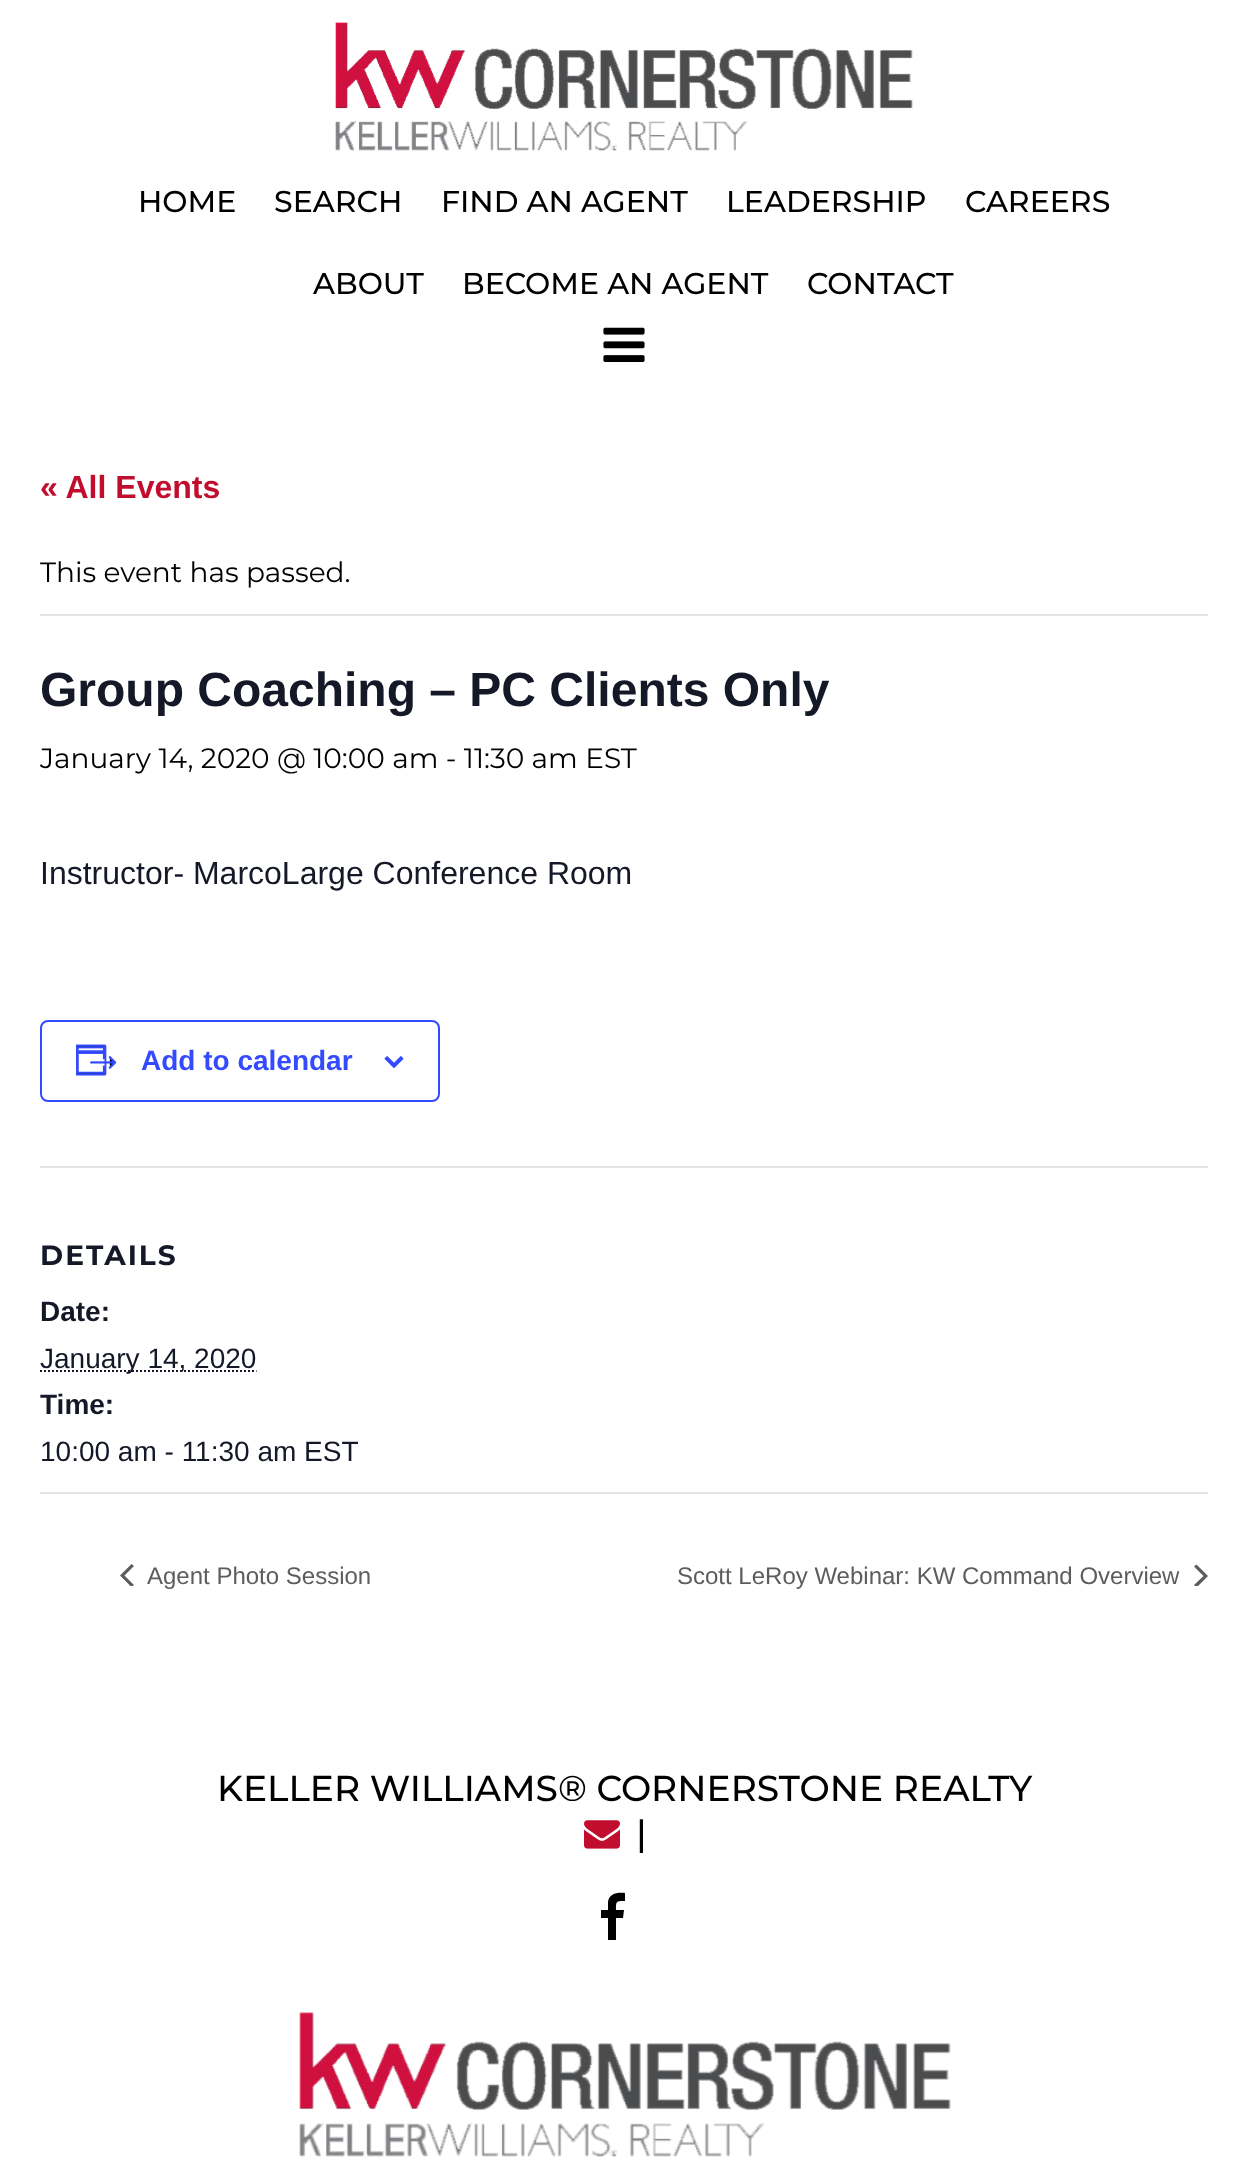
async function draw(canvas) {
  canvas.width = 1248;
  canvas.height = 2182;
  const ctx = canvas.getContext('2d');
  ctx.miterLimit = 4;
  ctx.fontKerning = 'normal';
  function label(s, x, y, font, color) {
    ctx.font = font;
    ctx.fillStyle = color;
    ctx.fillText(s, x, y);
  }
  function rect(x, y, w, h, color) {
    ctx.fillStyle = color;
    ctx.fillRect(x, y, w, h);
  }
  async function image(src, x, y, w, h) {
    const img = new Image();
    img.src = src;
    await img.decode();
    ctx.drawImage(img, x, y, w, h);
  }
  let path;

  rect(0, 0, 1248, 2182, '#fff');
  await image('assets/img1.png', 335, 22, 578, 129);
  label('HOME', 138, 212, '500 30px Montserrat', '#000');
  label('SEARCH', 274, 212, '500 30px Montserrat', '#000');
  label('FIND AN AGENT', 441, 212, '500 30px Montserrat', '#000');
  label('LEADERSHIP', 726, 212, '500 30px Montserrat', '#000');
  label('CAREERS', 965, 212, '500 30px Montserrat', '#000');
  label('ABOUT', 313, 294, '500 30px Montserrat', '#000');
  label('BECOME AN AGENT', 462, 294, '500 30px Montserrat', '#000');
  label('CONTACT', 807, 294, '500 30px Montserrat', '#000');
  await image('assets/img2.png', 603, 327, 42, 35);
  label('« All Events', 40, 498, 'bold 32px Liberation Sans', '#c20e2e');
  rect(40, 614, 1168, 2, '#e4e4e4');
  label('This event has passed.', 40, 582, '28px Montserrat', '#000');
  label('Group Coaching – PC Clients Only', 40, 706, 'bold 48px Liberation Sans', '#141827');
  label('January 14, 2020 @ 10:00 am - 11:30 am EST', 40, 768, '28px Montserrat', '#000');
  label('Instructor- MarcoLarge Conference Room', 40, 884, '32px Liberation Sans', '#141827');
  ctx.beginPath();
  ctx.roundRect(41, 1021, 398, 80, 7);
  ctx.strokeStyle = '#334aff';
  ctx.lineWidth = 2;
  ctx.stroke();
  await image('assets/img3.png', 76, 1044, 41, 32);
  label('Add to calendar', 141, 1070, 'bold 28px Liberation Sans', '#334aff');
  await image('assets/img4.png', 384, 1056, 20, 12);
  rect(40, 1166, 1168, 2, '#e4e4e4');
  ctx.letterSpacing = '2px';
  label('DETAILS', 40, 1265, 'bold 28px Montserrat', '#141827');
  ctx.letterSpacing = '0px';
  label('Date:', 40, 1321, 'bold 28px Liberation Sans', '#141827');
  path = new Path2D('M40 1371H256.5');
  ctx.strokeStyle = '#141827';
  ctx.setLineDash([2, 2]);
  ctx.stroke(path);
  label('January 14, 2020', 40, 1368, '28px Liberation Sans', '#141827');
  label('Time:', 40, 1414, 'bold 28px Liberation Sans', '#141827');
  label('10:00 am - 11:30 am EST', 40, 1461, '28px Liberation Sans', '#141827');
  rect(40, 1492, 1168, 2, '#e4e4e4');
  ctx.save();
  ctx.beginPath();
  ctx.rect(120, 1564, 14, 22);
  ctx.clip();
  ctx.fillStyle = '#5d5d5d';
  path = new Path2D('M134 1585L131.5 1587L120 1575.5L131.5 1564L134 1566L124.5 1575.5Z');
  ctx.fill(path);
  ctx.restore();
  label('Agent Photo Session', 147, 1584, '24px Liberation Sans', '#5d5d5d');
  label('Scott LeRoy Webinar: KW Command Overview', 677, 1584, '24px Liberation Sans', '#5d5d5d');
  ctx.save();
  ctx.beginPath();
  ctx.rect(1194, 1564, 14, 22);
  ctx.clip();
  path = new Path2D('M1194 1566.5L1196.5 1564.5L1208 1576L1196.5 1587.5L1194 1585L1203.5 1576Z');
  ctx.fill(path);
  ctx.restore();
  label('KELLER WILLIAMS® CORNERSTONE REALTY', 217, 1801, '500 36px Montserrat', '#000');
  await image('assets/img5.png', 584, 1820, 36, 29);
  label('|', 636, 1846, '500 36px Montserrat', '#000');
  path = new Path2D('M625 1893V1901C616 1901 616 1901 616 1910H624L623 1918H616V1940H608V1918H601V1910H608V1902C609 1893 618 1892 625 1893Z');
  ctx.fill(path);
  await image('assets/img6.png', 299, 2012, 652, 145);
}

draw(document.querySelector('canvas'));
